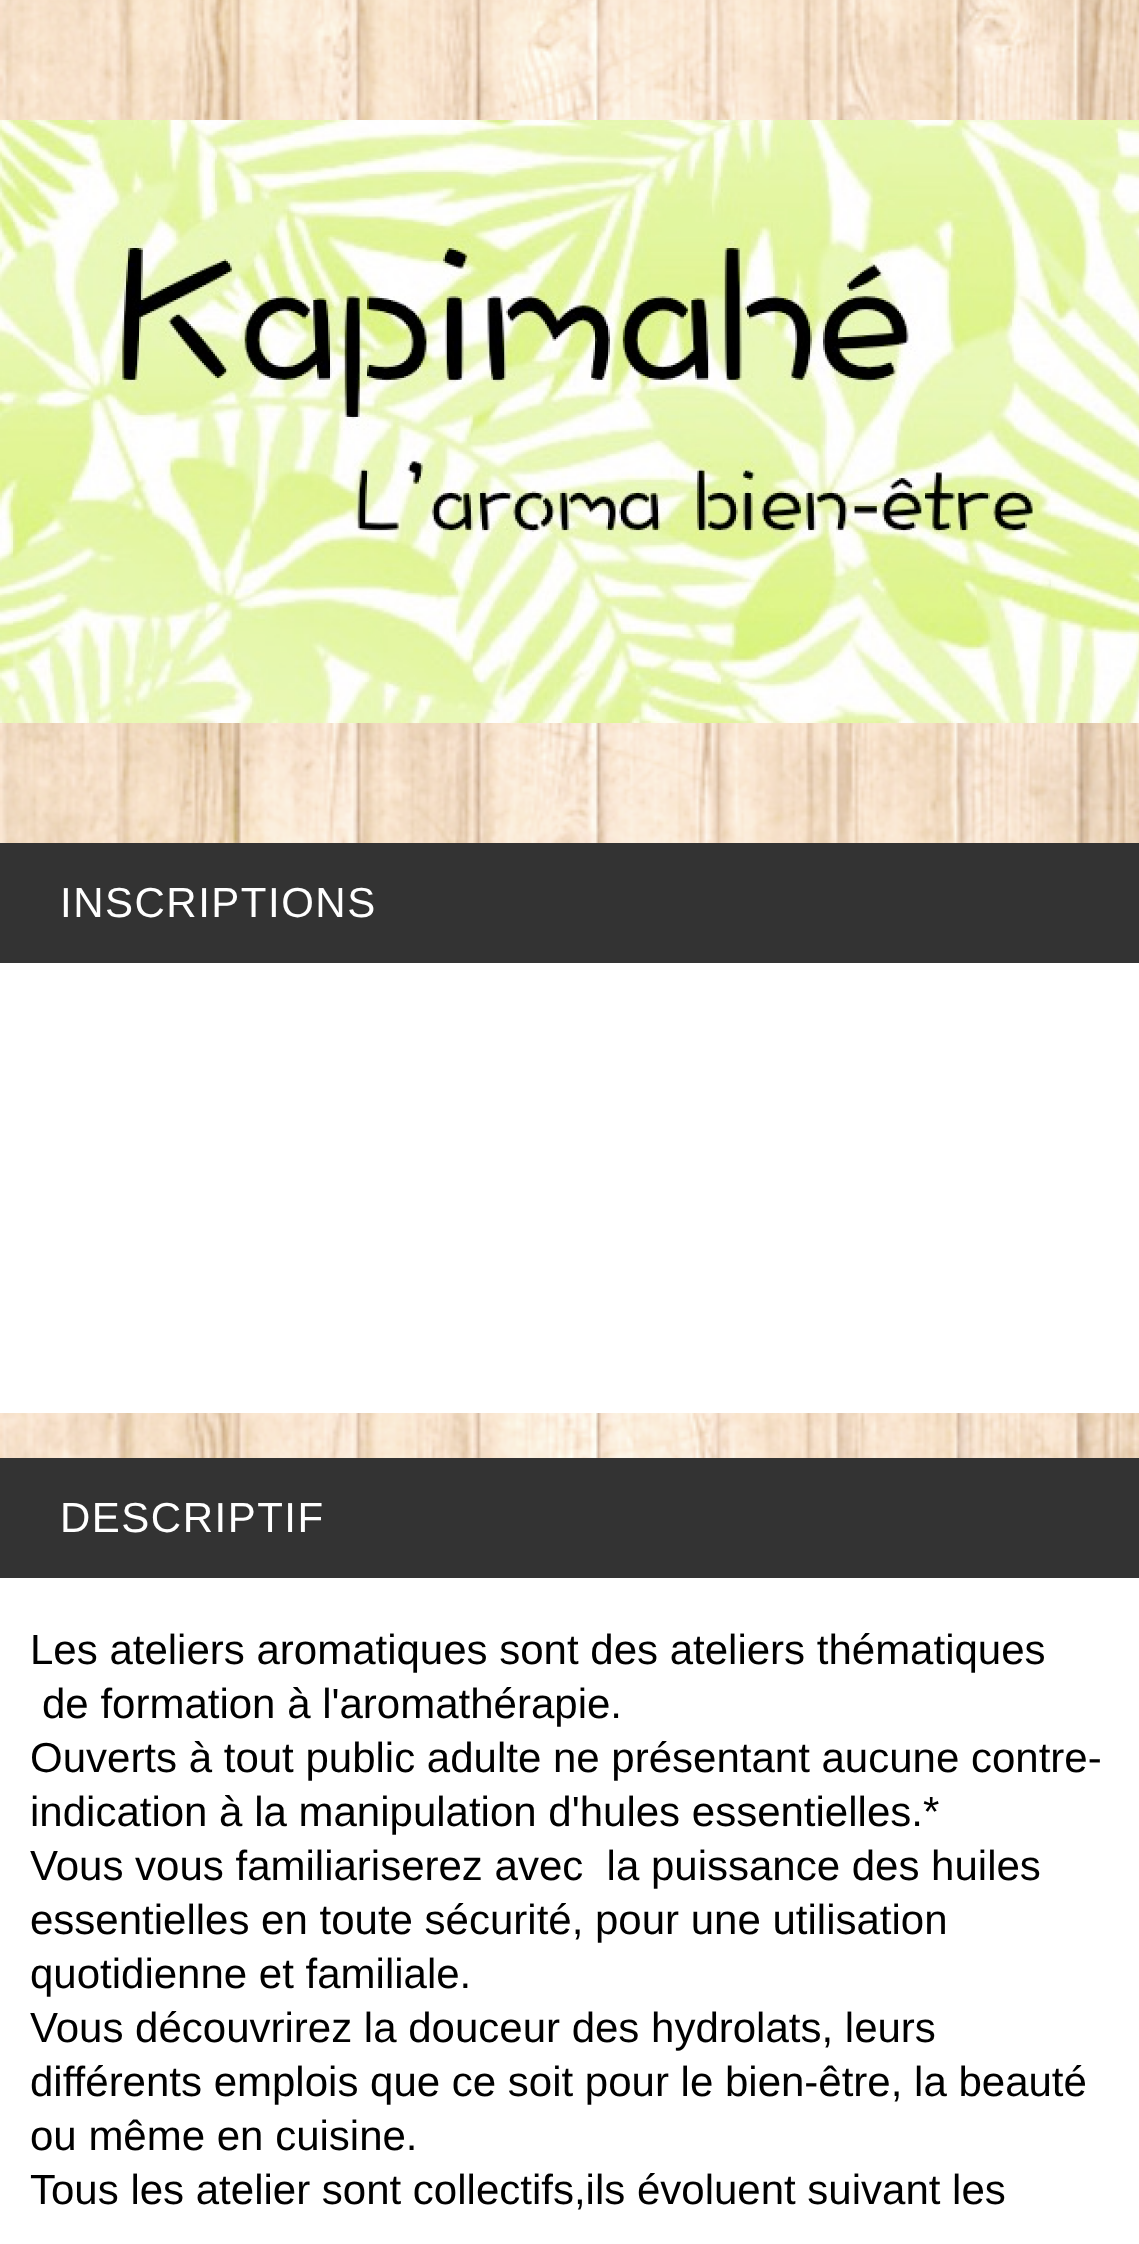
async function draw(canvas) {
  canvas.width = 1139;
  canvas.height = 2244;
  const ctx = canvas.getContext('2d');
  ctx.miterLimit = 4;
  ctx.fontKerning = 'normal';
  function label(s, x, y, font, color) {
    ctx.font = font;
    ctx.fillStyle = color;
    ctx.fillText(s, x, y);
  }
  function rect(x, y, w, h, color) {
    ctx.fillStyle = color;
    ctx.fillRect(x, y, w, h);
  }
  async function image(src, x, y, w, h) {
    const img = new Image();
    img.src = src;
    await img.decode();
    ctx.drawImage(img, x, y, w, h);
  }

  rect(0, 0, 1139, 2244, '#fff');
  await image('assets/img1.png', 0, 0, 1139, 1458);
  await image('assets/img2.png', 0, 120, 1139, 603);
  rect(0, 843, 1139, 120, '#333');
  ctx.letterSpacing = '1.5px';
  label('INSCRIPTIONS', 60, 917, '42px Liberation Sans', '#fff');
  rect(0, 963, 1139, 450, '#fff');
  rect(0, 1458, 1139, 120, '#333');
  label('DESCRIPTIF', 60, 1532, '42px Liberation Sans', '#fff');
  ctx.letterSpacing = '0px';
  label('Les ateliers aromatiques sont des ateliers thématiques', 30, 1664, '42px Liberation Sans', '#000');
  label('de formation à l\'aromathérapie.', 42, 1718, '42px Liberation Sans', '#000');
  label('Ouverts à tout public adulte ne présentant aucune contre-', 30, 1772, '42px Liberation Sans', '#000');
  label('indication à la manipulation d\'hules essentielles.*', 30, 1826, '42px Liberation Sans', '#000');
  label('Vous vous familiariserez avec  la puissance des huiles', 30, 1880, '42px Liberation Sans', '#000');
  label('essentielles en toute sécurité, pour une utilisation', 30, 1934, '42px Liberation Sans', '#000');
  label('quotidienne et familiale.', 30, 1988, '42px Liberation Sans', '#000');
  label('Vous découvrirez la douceur des hydrolats, leurs', 30, 2042, '42px Liberation Sans', '#000');
  label('différents emplois que ce soit pour le bien-être, la beauté', 30, 2096, '42px Liberation Sans', '#000');
  label('ou même en cuisine.', 30, 2150, '42px Liberation Sans', '#000');
  label('Tous les atelier sont collectifs,ils évoluent suivant les', 30, 2204, '42px Liberation Sans', '#000');
}

draw(document.querySelector('canvas'));
